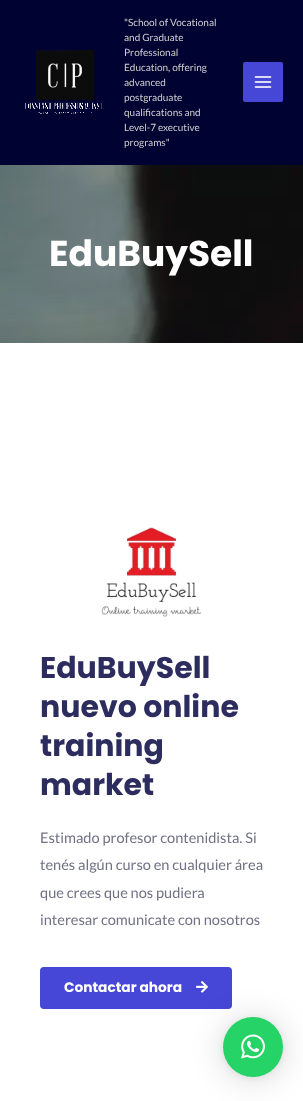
async function draw(canvas) {
  canvas.width = 303;
  canvas.height = 1101;
  const ctx = canvas.getContext('2d');
  ctx.miterLimit = 4;
  ctx.fontKerning = 'normal';
  function label(s, x, y, font, color) {
    ctx.font = font;
    ctx.fillStyle = color;
    ctx.fillText(s, x, y);
  }
  function rect(x, y, w, h, color) {
    ctx.fillStyle = color;
    ctx.fillRect(x, y, w, h);
  }
  function roundedRect(x, y, w, h, r, color) {
    ctx.fillStyle = color;
    ctx.beginPath();
    ctx.roundRect(x, y, w, h, r);
    ctx.fill();
  }
  async function image(src, x, y, w, h) {
    const img = new Image();
    img.src = src;
    await img.decode();
    ctx.drawImage(img, x, y, w, h);
  }

  rect(0, 0, 303, 1101, '#fff');
  rect(0, 0, 303, 165, '#000232');
  await image('assets/img1.png', 25, 50, 79, 64);
  label('"School of Vocational', 124, 26, '10px Lato', '#d0d0d0');
  label('and Graduate', 124, 41, '10px Lato', '#d0d0d0');
  label('Professional', 124, 56, '10px Lato', '#d0d0d0');
  label('Education, offering', 124, 71, '10px Lato', '#d0d0d0');
  label('advanced', 124, 86, '10px Lato', '#d0d0d0');
  label('postgraduate', 124, 101, '10px Lato', '#d0d0d0');
  label('qualifications and', 124, 116, '10px Lato', '#d0d0d0');
  label('Level-7 executive', 124, 131, '10px Lato', '#d0d0d0');
  label('programs"', 124, 146, '10px Lato', '#d0d0d0');
  roundedRect(243, 62, 40, 40, 2, '#4747d7');
  await image('assets/img2.png', 254, 76, 18, 12);
  await image('assets/img3.png', 0, 165, 303, 178);
  label('EduBuySell', 49, 266, 'bold 36px Poppins', '#fff');
  await image('assets/img4.png', 101, 527, 101, 90);
  label('EduBuySell', 40, 678, 'bold 30px Poppins', '#2c2c5f');
  label('nuevo online', 40, 717, 'bold 30px Poppins', '#2c2c5f');
  label('training', 40, 756, 'bold 30px Poppins', '#2c2c5f');
  label('market', 40, 795, 'bold 30px Poppins', '#2c2c5f');
  label('Estimado profesor contenidista. Si', 40, 843, '14.6px Lato', '#717186');
  label('tenés algún curso en cualquier área', 40, 870, '14.6px Lato', '#717186');
  label('que crees que nos pudiera', 40, 898, '14.6px Lato', '#717186');
  label('interesar comunicate con nosotros', 40, 925, '14.6px Lato', '#717186');
  ctx.fillStyle = '#4747d7';
  ctx.beginPath();
  ctx.roundRect(41, 968, 190, 40, 3);
  ctx.fill();
  ctx.strokeStyle = '#4747d7';
  ctx.lineWidth = 2;
  ctx.stroke();
  label('Contactar ahora', 64, 992, 'bold 13.75px Poppins', '#fff');
  await image('assets/img5.png', 196, 981, 12, 12);
  ctx.fillStyle = '#00000029';
  ctx.filter = 'blur(16px)';
  ctx.beginPath();
  ctx.roundRect(223, 1019, 60, 60, 30);
  ctx.fill();
  ctx.filter = 'none';
  ctx.fillStyle = '#0000000f';
  ctx.filter = 'blur(3px)';
  ctx.beginPath();
  ctx.roundRect(223, 1018, 60, 60, 30);
  ctx.fill();
  ctx.filter = 'none';
  ctx.fillStyle = '#25d366';
  ctx.beginPath();
  ctx.arc(253, 1047, 30, 0, 2 * Math.PI);
  ctx.fill();
  await image('assets/img6.png', 241, 1034, 24, 25);
}

draw(document.querySelector('canvas'));
